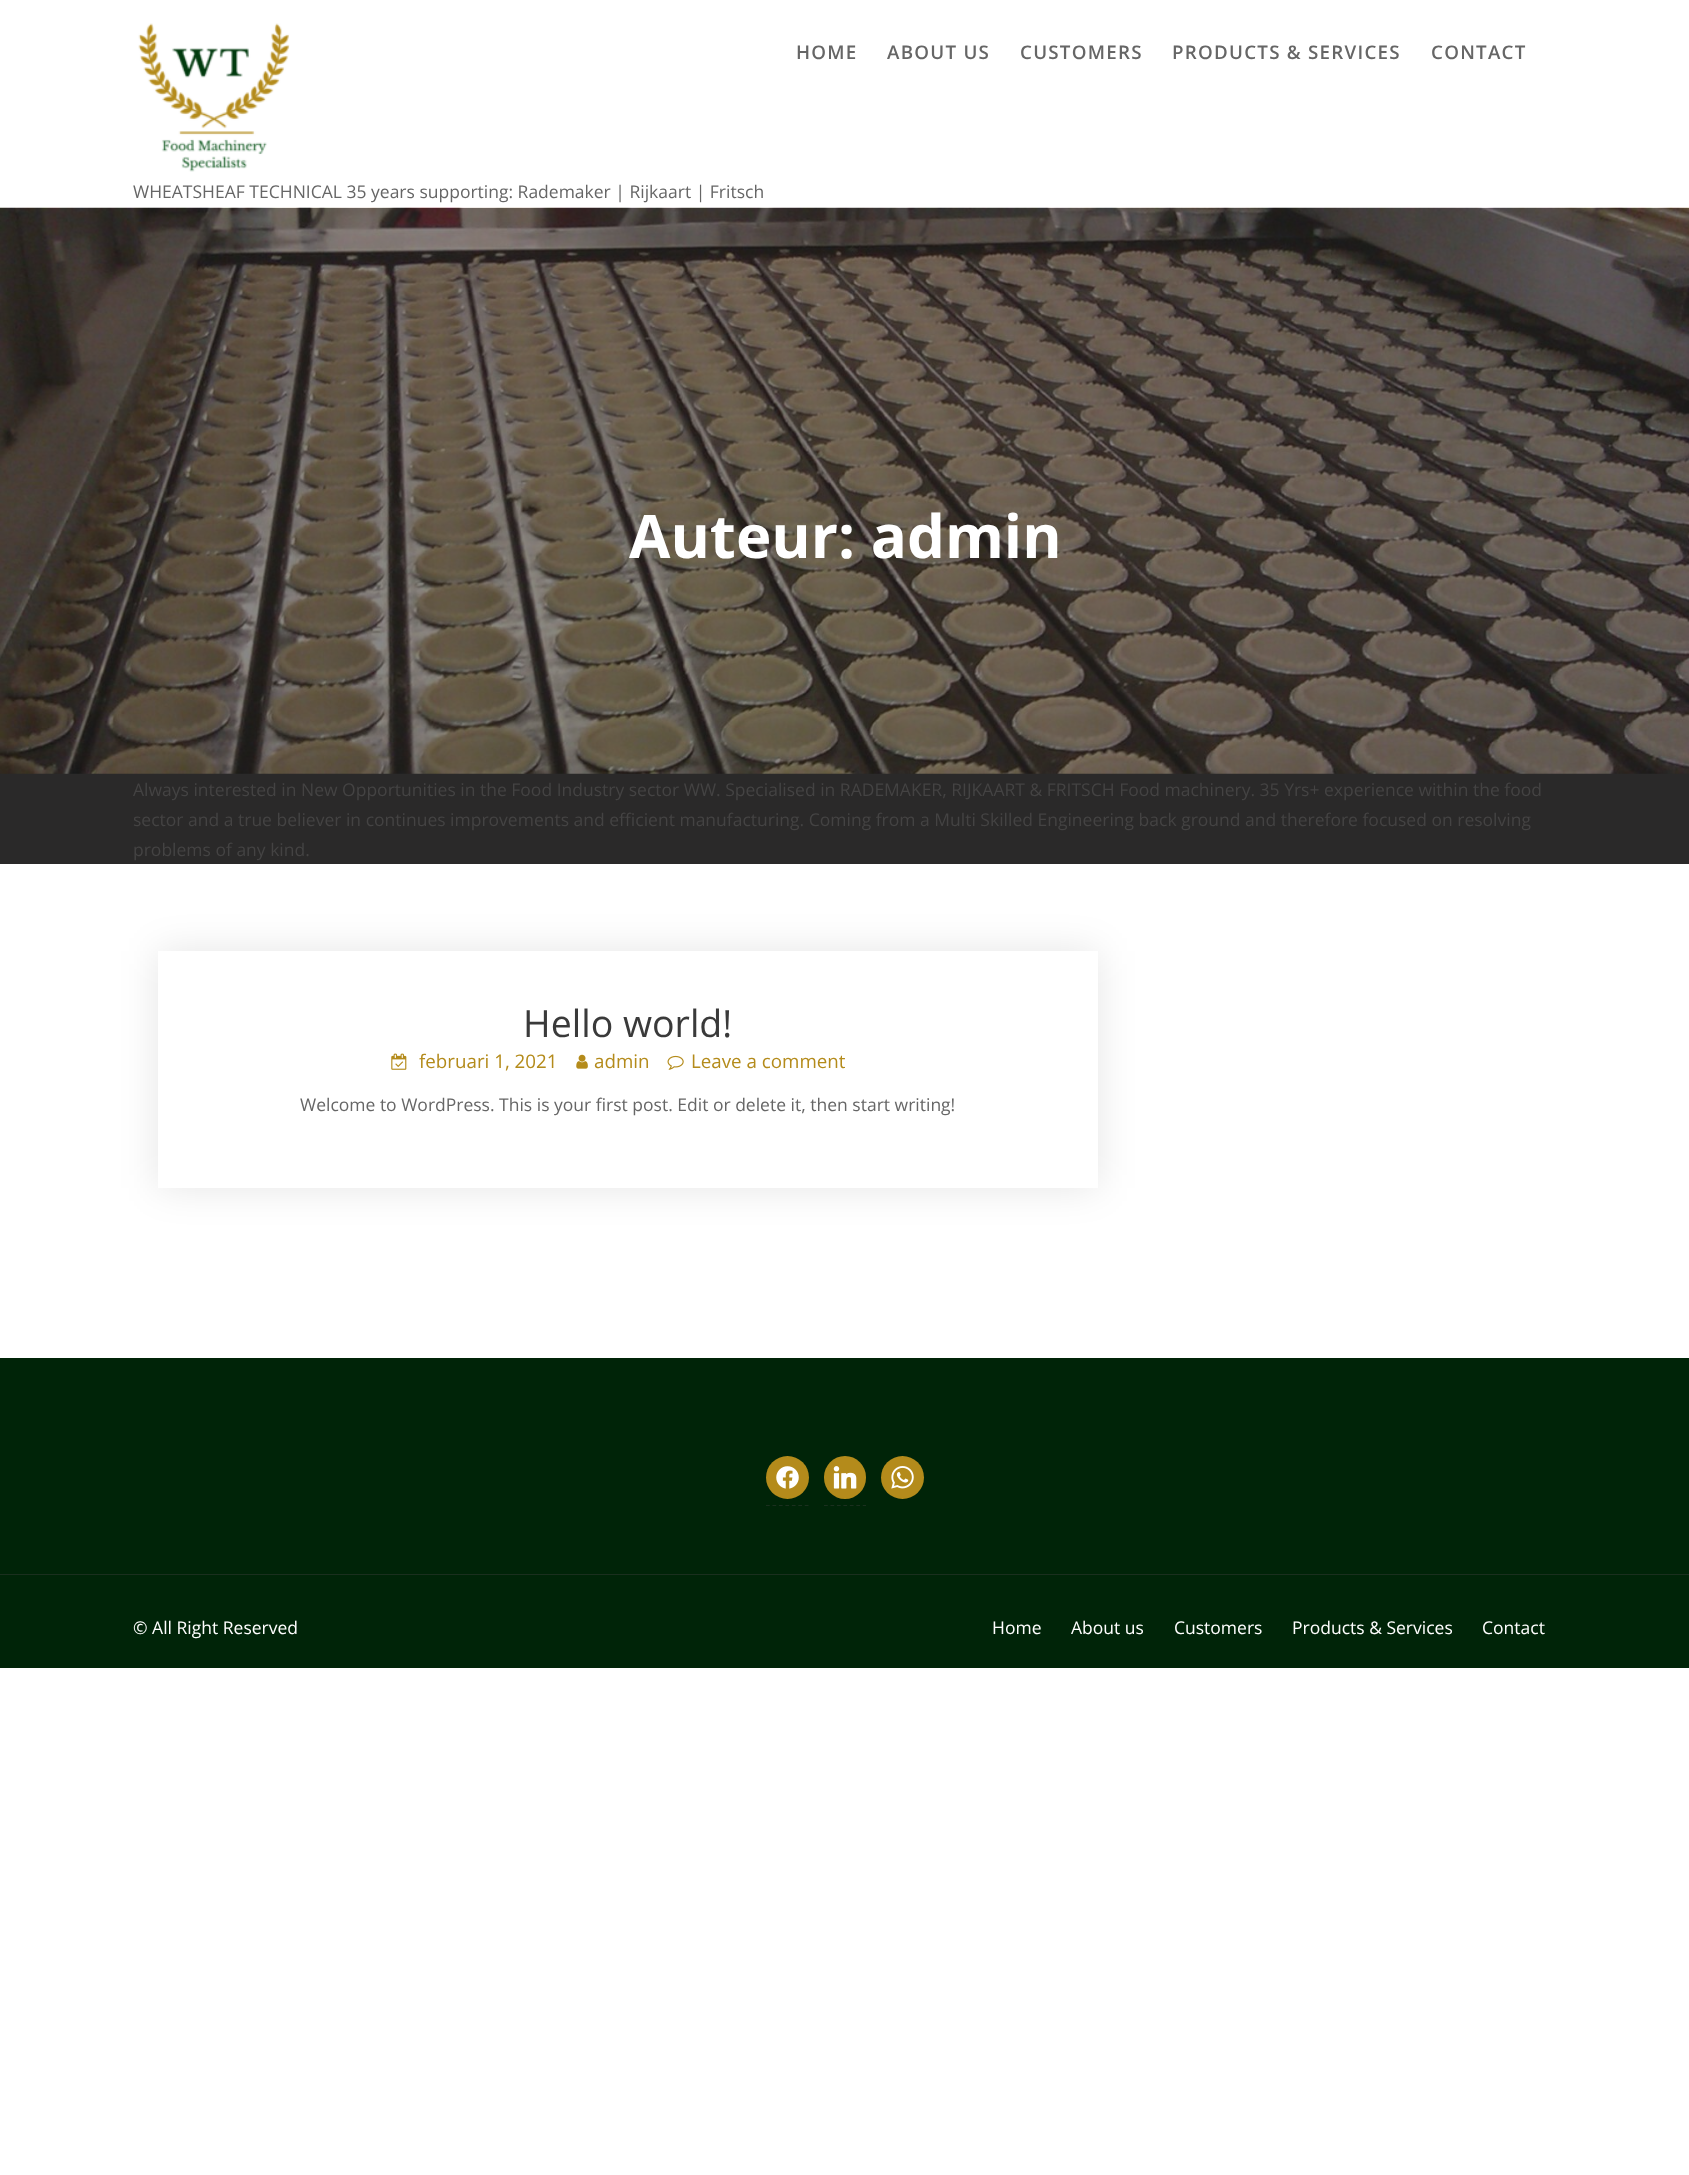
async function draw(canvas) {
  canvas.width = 1689;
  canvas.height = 2175;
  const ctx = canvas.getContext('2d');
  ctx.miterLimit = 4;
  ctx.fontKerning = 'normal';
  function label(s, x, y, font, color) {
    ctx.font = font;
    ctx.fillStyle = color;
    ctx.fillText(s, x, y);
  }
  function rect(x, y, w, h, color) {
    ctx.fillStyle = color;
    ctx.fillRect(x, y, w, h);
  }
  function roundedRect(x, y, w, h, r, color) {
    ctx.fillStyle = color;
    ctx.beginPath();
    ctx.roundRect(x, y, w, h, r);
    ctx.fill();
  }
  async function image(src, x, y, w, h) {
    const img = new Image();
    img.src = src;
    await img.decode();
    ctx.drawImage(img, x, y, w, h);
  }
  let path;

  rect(0, 0, 1689, 2175, '#fff');
  ctx.letterSpacing = '1.25px';
  label('HOME', 796, 59, '600 18.75px Open Sans', '#666');
  label('ABOUT US', 887, 59, '600 18.75px Open Sans', '#666');
  label('CUSTOMERS', 1020, 59, '600 18.75px Open Sans', '#666');
  label('PRODUCTS & SERVICES', 1172, 59, '600 18.75px Open Sans', '#666');
  label('CONTACT', 1431, 59, '600 18.75px Open Sans', '#666');
  await image('assets/img1.png', 138, 23, 152, 149);
  ctx.letterSpacing = '0px';
  label('WHEATSHEAF TECHNICAL 35 years supporting: Rademaker | Rijkaart | Fritsch', 133, 198, '17.5px Open Sans', '#666');
  rect(0, 773, 1689, 91, '#2a2929');
  await image('assets/img2.png', 0, 207, 1689, 567);
  label('Auteur: admin', 629, 558, 'bold 60px Open Sans', '#fff');
  label('Always interested in New Opportunities in the Food Industry sector WW. Specialised in RADEMAKER, RIJKAART & FRITSCH Food machinery. 35 Yrs+ experience within the food', 133, 796, '17.5px Open Sans', '#444343');
  label('sector and a true believer in continues improvements and efficient manufacturing. Coming from a Multi Skilled Engineering back ground and therefore focused on resolving', 133, 826, '17.5px Open Sans', '#444343');
  label('problems of any kind.', 133, 856, '17.5px Open Sans', '#444343');
  ctx.fillStyle = '#0000001a';
  ctx.filter = 'blur(19px)';
  ctx.beginPath();
  ctx.rect(158, 951, 940, 237);
  ctx.fill();
  ctx.filter = 'none';
  rect(158, 951, 940, 237, '#fff');
  label('Hello world!', 523, 1037, '37.5px Open Sans', '#3a3a3a');
  await image('assets/img3.png', 391, 1053, 16, 17);
  label('februari 1, 2021', 419, 1068, '18.75px Open Sans', '#b48b1b');
  await image('assets/img4.png', 576, 1054, 12, 15);
  label('admin', 594, 1068, '18.75px Open Sans', '#b48b1b');
  await image('assets/img5.png', 667, 1055, 17, 15);
  label('Leave a comment', 691, 1068, '18.75px Open Sans', '#b48b1b');
  label('Welcome to WordPress. This is your first post. Edit or delete it, then start writing!', 300, 1111, '17.5px Open Sans', '#666');
  rect(0, 1358, 1689, 310, '#002408');
  path = new Path2D('M766 1505.5H809');
  ctx.strokeStyle = '#1a2f1e';
  ctx.lineWidth = 1.2;
  ctx.setLineDash([3.75, 2.71]);
  ctx.stroke(path);
  ctx.fillStyle = '#b48b1b';
  ctx.beginPath();
  ctx.arc(787.5, 1477.5, 21.5, 0, 2 * Math.PI);
  ctx.fill();
  await image('assets/img6.png', 776, 1466, 23, 23);
  path = new Path2D('M824 1505.5H866');
  ctx.stroke(path);
  roundedRect(824, 1456, 42, 43, 21, '#b48b1b');
  await image('assets/img7.png', 833, 1466, 24, 23);
  ctx.beginPath();
  ctx.arc(902.5, 1477.5, 21.5, 0, 2 * Math.PI);
  ctx.fill();
  await image('assets/img8.png', 891, 1466, 23, 23);
  rect(0, 1574, 1689, 1, '#1a2f1e');
  label('© All Right Reserved', 133, 1634, '17.5px Open Sans', '#fff');
  label('Home', 992, 1634, '17.5px Open Sans', '#fff');
  label('About us', 1071, 1634, '17.5px Open Sans', '#fff');
  label('Customers', 1174, 1634, '17.5px Open Sans', '#fff');
  label('Products & Services', 1292, 1634, '17.5px Open Sans', '#fff');
  label('Contact', 1482, 1634, '17.5px Open Sans', '#fff');
}

draw(document.querySelector('canvas'));
